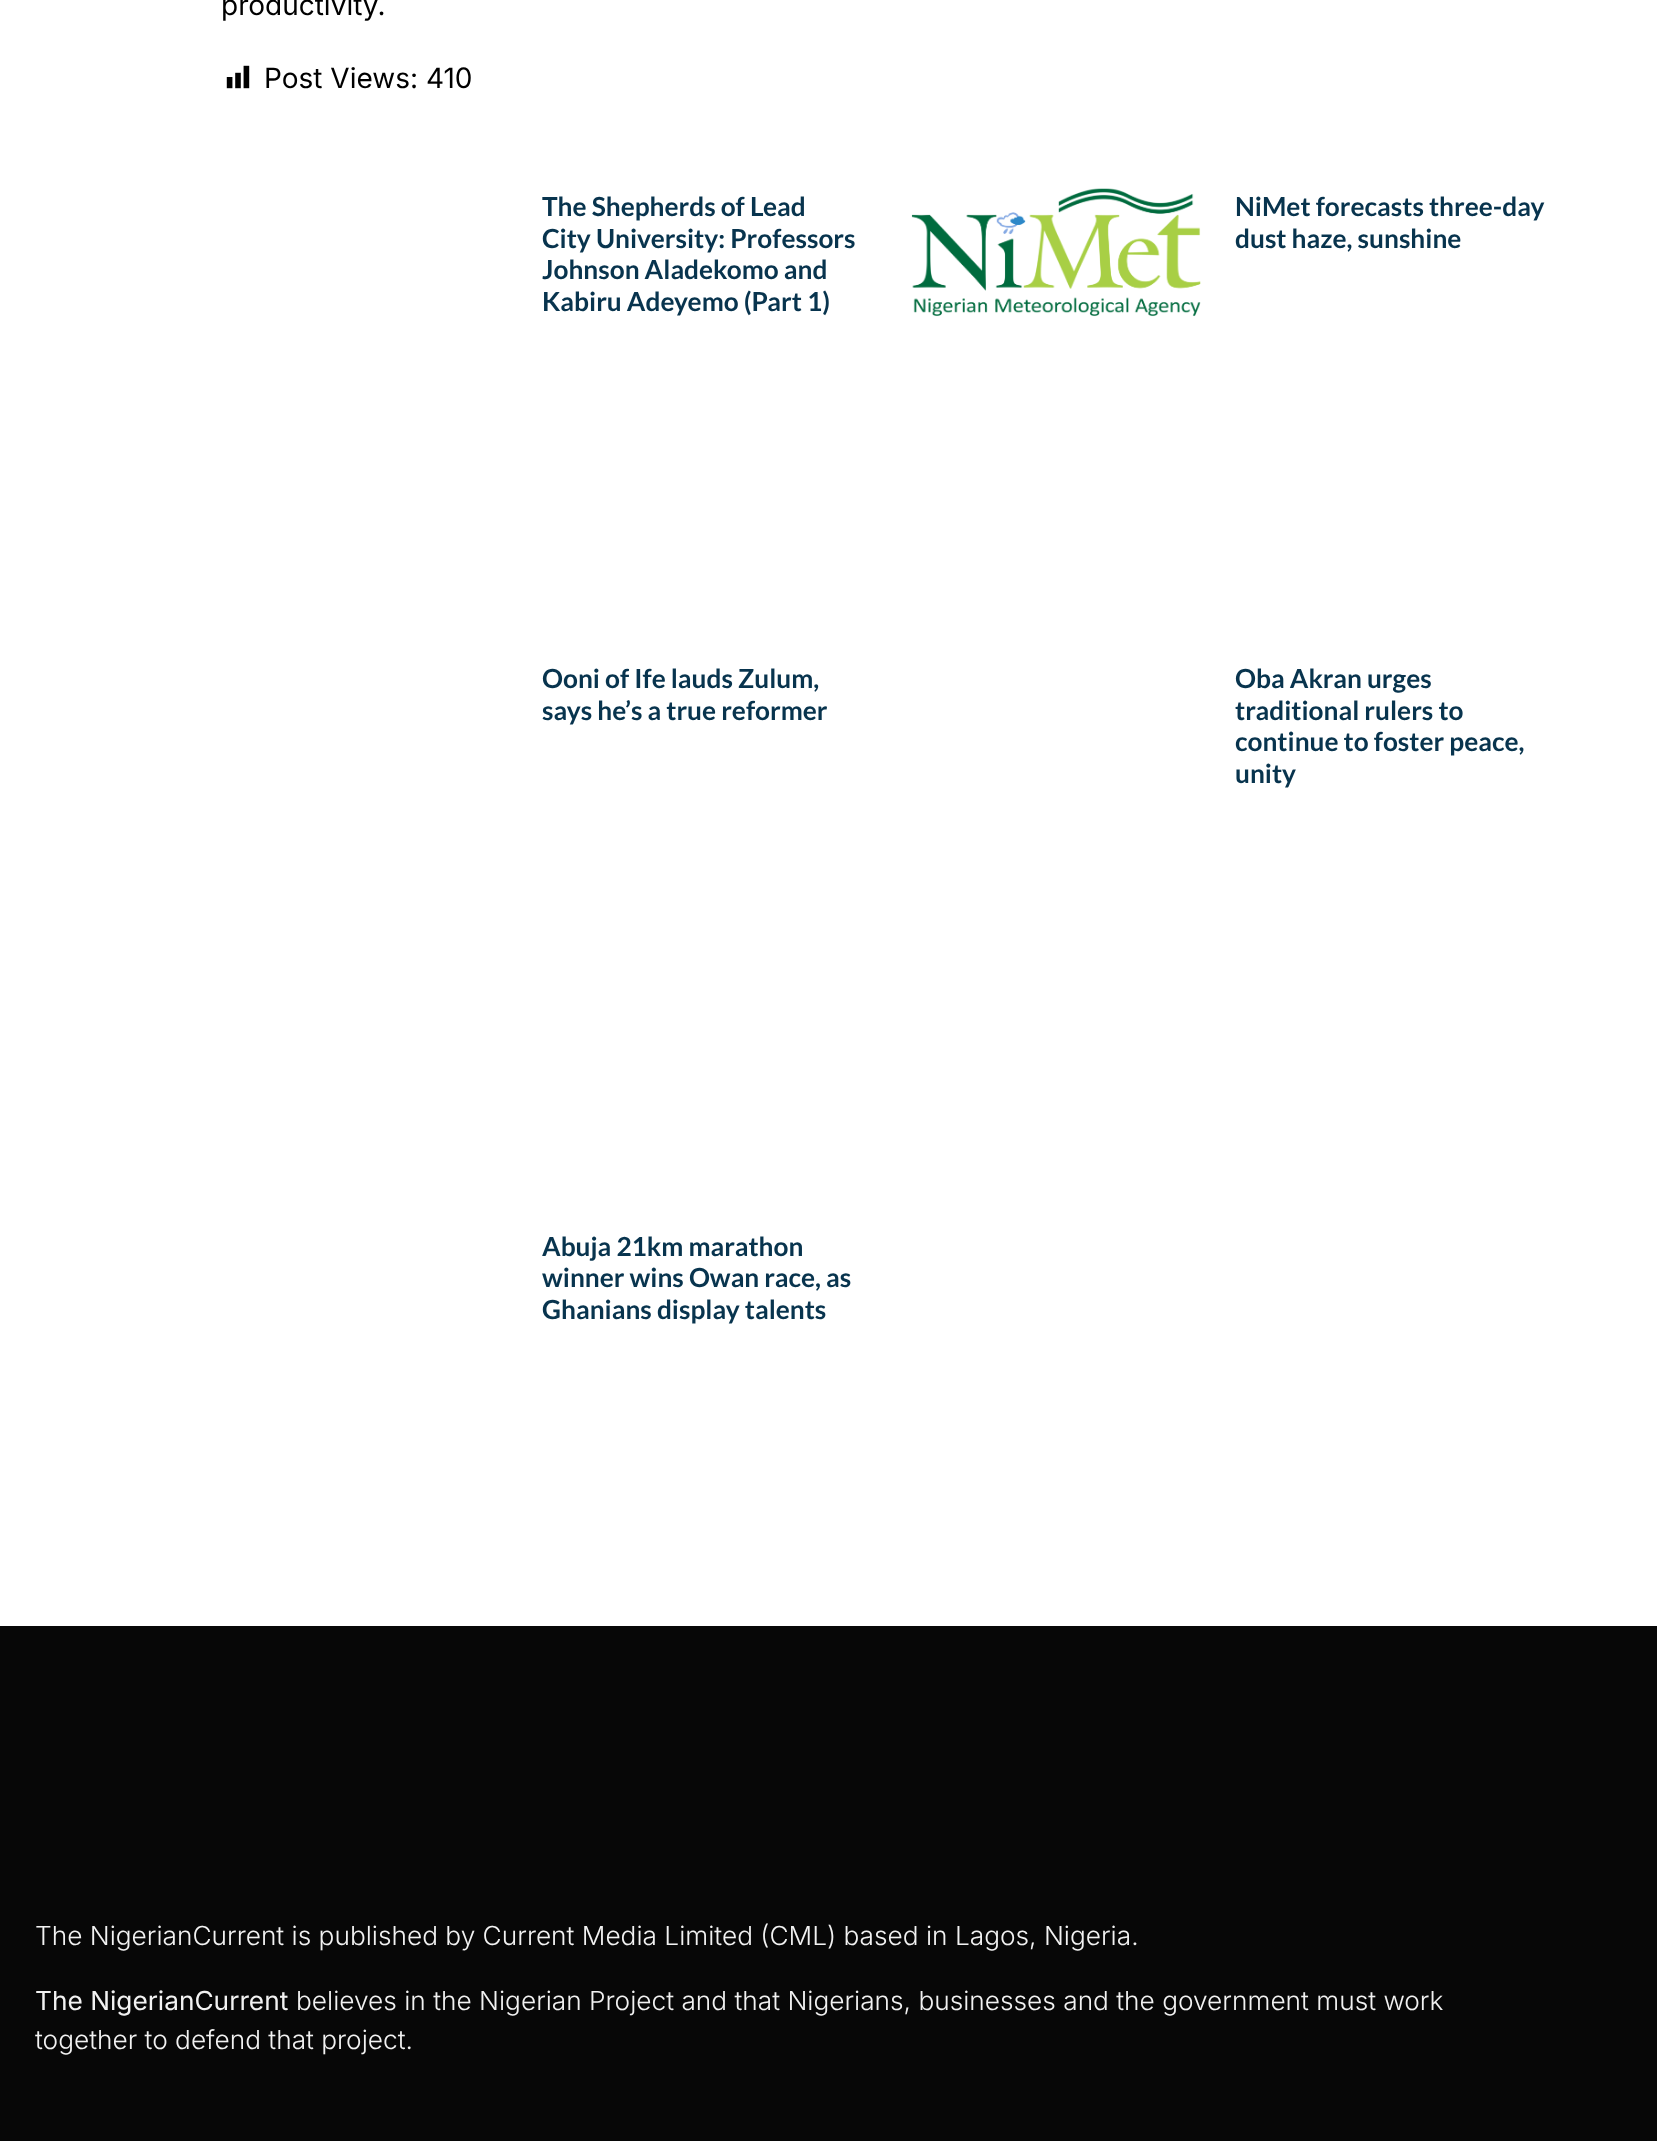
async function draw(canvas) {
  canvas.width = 1657;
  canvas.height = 2141;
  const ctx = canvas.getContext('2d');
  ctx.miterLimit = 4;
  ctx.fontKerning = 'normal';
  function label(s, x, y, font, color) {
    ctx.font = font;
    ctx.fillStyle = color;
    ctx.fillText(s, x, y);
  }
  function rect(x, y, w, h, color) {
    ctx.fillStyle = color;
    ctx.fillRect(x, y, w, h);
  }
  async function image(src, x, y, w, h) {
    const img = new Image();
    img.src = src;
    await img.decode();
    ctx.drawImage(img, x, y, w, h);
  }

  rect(0, 0, 1657, 2141, '#fff');
  label('productivity.', 221, 15, '28px Inter', '#000');
  await image('assets/img1.png', 226, 65, 24, 24);
  label('Post Views: 410', 264, 88, '28px Inter', '#000');
  label('The Shepherds of Lead', 542, 216, 'bold 26.25px Lato', '#08344e');
  label('City University: Professors', 542, 248, 'bold 26.25px Lato', '#08344e');
  label('Johnson Aladekomo and', 542, 279, 'bold 26.25px Lato', '#08344e');
  label('Kabiru Adeyemo (Part 1)', 542, 311, 'bold 26.25px Lato', '#08344e');
  await image('assets/img2.png', 911, 188, 290, 129);
  label('NiMet forecasts three-day', 1235, 216, 'bold 26.25px Lato', '#08344e');
  label('dust haze, sunshine', 1235, 248, 'bold 26.25px Lato', '#08344e');
  label('Ooni of Ife lauds Zulum,', 542, 688, 'bold 26.25px Lato', '#08344e');
  label('says he’s a true reformer', 542, 720, 'bold 26.25px Lato', '#08344e');
  label('Oba Akran urges', 1235, 688, 'bold 26.25px Lato', '#08344e');
  label('traditional rulers to', 1235, 720, 'bold 26.25px Lato', '#08344e');
  label('continue to foster peace,', 1235, 751, 'bold 26.25px Lato', '#08344e');
  label('unity', 1235, 783, 'bold 26.25px Lato', '#08344e');
  label('Abuja 21km marathon', 542, 1256, 'bold 26.25px Lato', '#08344e');
  label('winner wins Owan race, as', 542, 1287, 'bold 26.25px Lato', '#08344e');
  label('Ghanians display talents', 542, 1319, 'bold 26.25px Lato', '#08344e');
  rect(0, 1626, 1657, 515, '#070707');
  label('The NigerianCurrent is published by Current Media Limited (CML) based in Lagos, Nigeria.', 35, 1945, '300 26.25px Inter', '#f2f2f2');
  label('The NigerianCurrent', 35, 2010, '26.25px Inter', '#f2f2f2');
  label('believes in the Nigerian Project and that Nigerians, businesses and the government must work', 296, 2010, '300 26.25px Inter', '#f2f2f2');
  label('together to defend that project.', 35, 2049, '300 26.25px Inter', '#f2f2f2');
}

draw(document.querySelector('canvas'));
